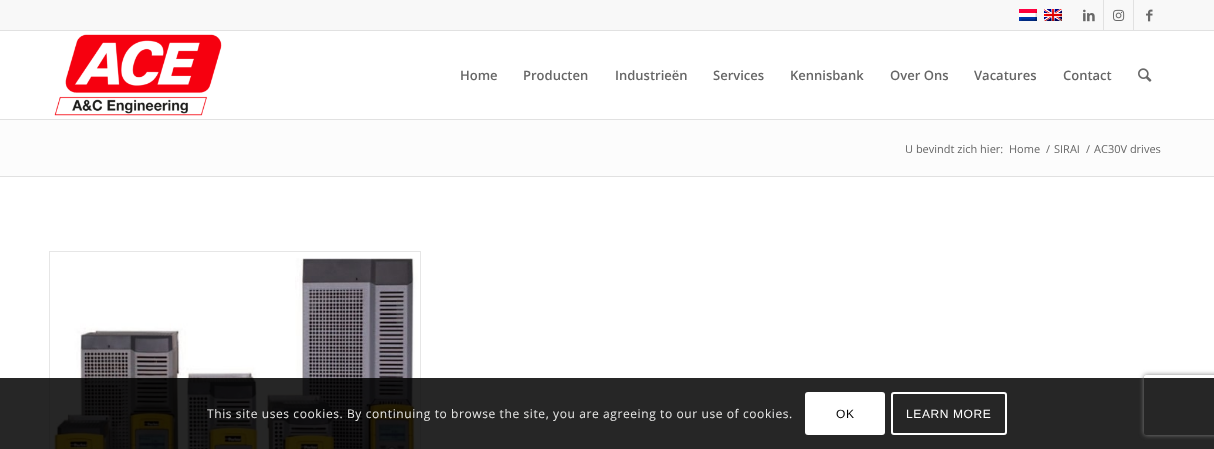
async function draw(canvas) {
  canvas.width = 1214;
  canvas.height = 449;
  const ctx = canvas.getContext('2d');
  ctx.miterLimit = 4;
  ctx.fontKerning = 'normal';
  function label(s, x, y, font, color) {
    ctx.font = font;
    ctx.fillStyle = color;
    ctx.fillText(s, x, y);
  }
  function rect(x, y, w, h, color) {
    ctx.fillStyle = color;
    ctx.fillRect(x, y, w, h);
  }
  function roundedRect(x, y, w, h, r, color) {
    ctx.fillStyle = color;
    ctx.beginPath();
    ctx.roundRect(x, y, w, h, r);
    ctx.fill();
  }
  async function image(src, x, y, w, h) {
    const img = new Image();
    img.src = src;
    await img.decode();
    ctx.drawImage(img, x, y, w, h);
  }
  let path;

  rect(0, 0, 1214, 449, '#fff');
  rect(0, 0, 1214, 30, '#f8f8f8');
  rect(0, 30, 1214, 1, '#e1e1e1');
  await image('assets/img1.png', 1019, 9, 18, 12);
  await image('assets/img2.png', 1044, 9, 18, 12);
  rect(1103, 0, 1, 30, '#e1e1e1');
  await image('assets/img3.png', 1083, 9, 12, 13);
  rect(1133, 0, 1, 30, '#e1e1e1');
  await image('assets/img4.png', 1113, 9, 12, 12);
  await image('assets/img5.png', 1146, 9, 7, 13);
  rect(0, 119, 1214, 1, '#e1e1e1');
  await image('assets/img6.png', 54, 34, 168, 82);
  label('Home', 460, 80, '600 13px Open Sans', '#666');
  label('Producten', 523, 80, '600 13px Open Sans', '#666');
  label('Industrieën', 615, 80, '600 13px Open Sans', '#666');
  label('Services', 713, 80, '600 13px Open Sans', '#666');
  label('Kennisbank', 790, 80, '600 13px Open Sans', '#666');
  label('Over Ons', 890, 80, '600 13px Open Sans', '#666');
  label('Vacatures', 974, 80, '600 13px Open Sans', '#666');
  label('Contact', 1063, 80, '600 13px Open Sans', '#666');
  await image('assets/img7.png', 1138, 68, 14, 14);
  rect(0, 120, 1214, 56, '#fcfcfc');
  label('U bevindt zich hier:', 905, 153, '11px Open Sans', '#666');
  label('Home', 1009, 153, '11px Open Sans', '#666');
  label('/', 1046, 153, '11px Open Sans', '#666');
  label('SIRAI', 1054, 153, '11px Open Sans', '#666');
  label('/', 1086, 153, '11px Open Sans', '#666');
  label('AC30V drives', 1094, 153, '11px Open Sans', '#666');
  rect(0, 176, 1214, 1, '#e1e1e1');
  ctx.strokeStyle = '#e6e6e6';
  ctx.strokeRect(49.5, 251.5, 371, 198);
  await image('assets/img8.png', 50, 258, 369, 191);
  rect(0, 378, 1214, 71, '#000000d9');
  ctx.letterSpacing = '0.6px';
  label('This site uses cookies. By continuing to browse the site, you are agreeing to our use of cookies.', 207, 418, '12px Open Sans', '#e9e9e8');
  roundedRect(805, 392, 80, 43, 3, '#fff');
  label('OK', 836, 418, '12px Liberation Sans', '#000');
  ctx.beginPath();
  ctx.roundRect(892, 393, 114, 41, 2);
  ctx.strokeStyle = '#fff';
  ctx.lineWidth = 2;
  ctx.stroke();
  label('LEARN MORE', 906, 418, '12px Liberation Sans', '#fff');
  ctx.save();
  path = new Path2D('M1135 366H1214V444H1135ZM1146 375H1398C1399 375 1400 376 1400 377V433C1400 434 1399 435 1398 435H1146C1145 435 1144 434 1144 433V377C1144 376 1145 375 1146 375Z');
  ctx.clip(path, 'evenodd');
  ctx.fillStyle = '#808080';
  ctx.filter = 'blur(2.5px)';
  ctx.beginPath();
  ctx.roundRect(1144, 375, 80, 60, 2);
  ctx.fill();
  ctx.filter = 'none';
  ctx.restore();
}

draw(document.querySelector('canvas'));
